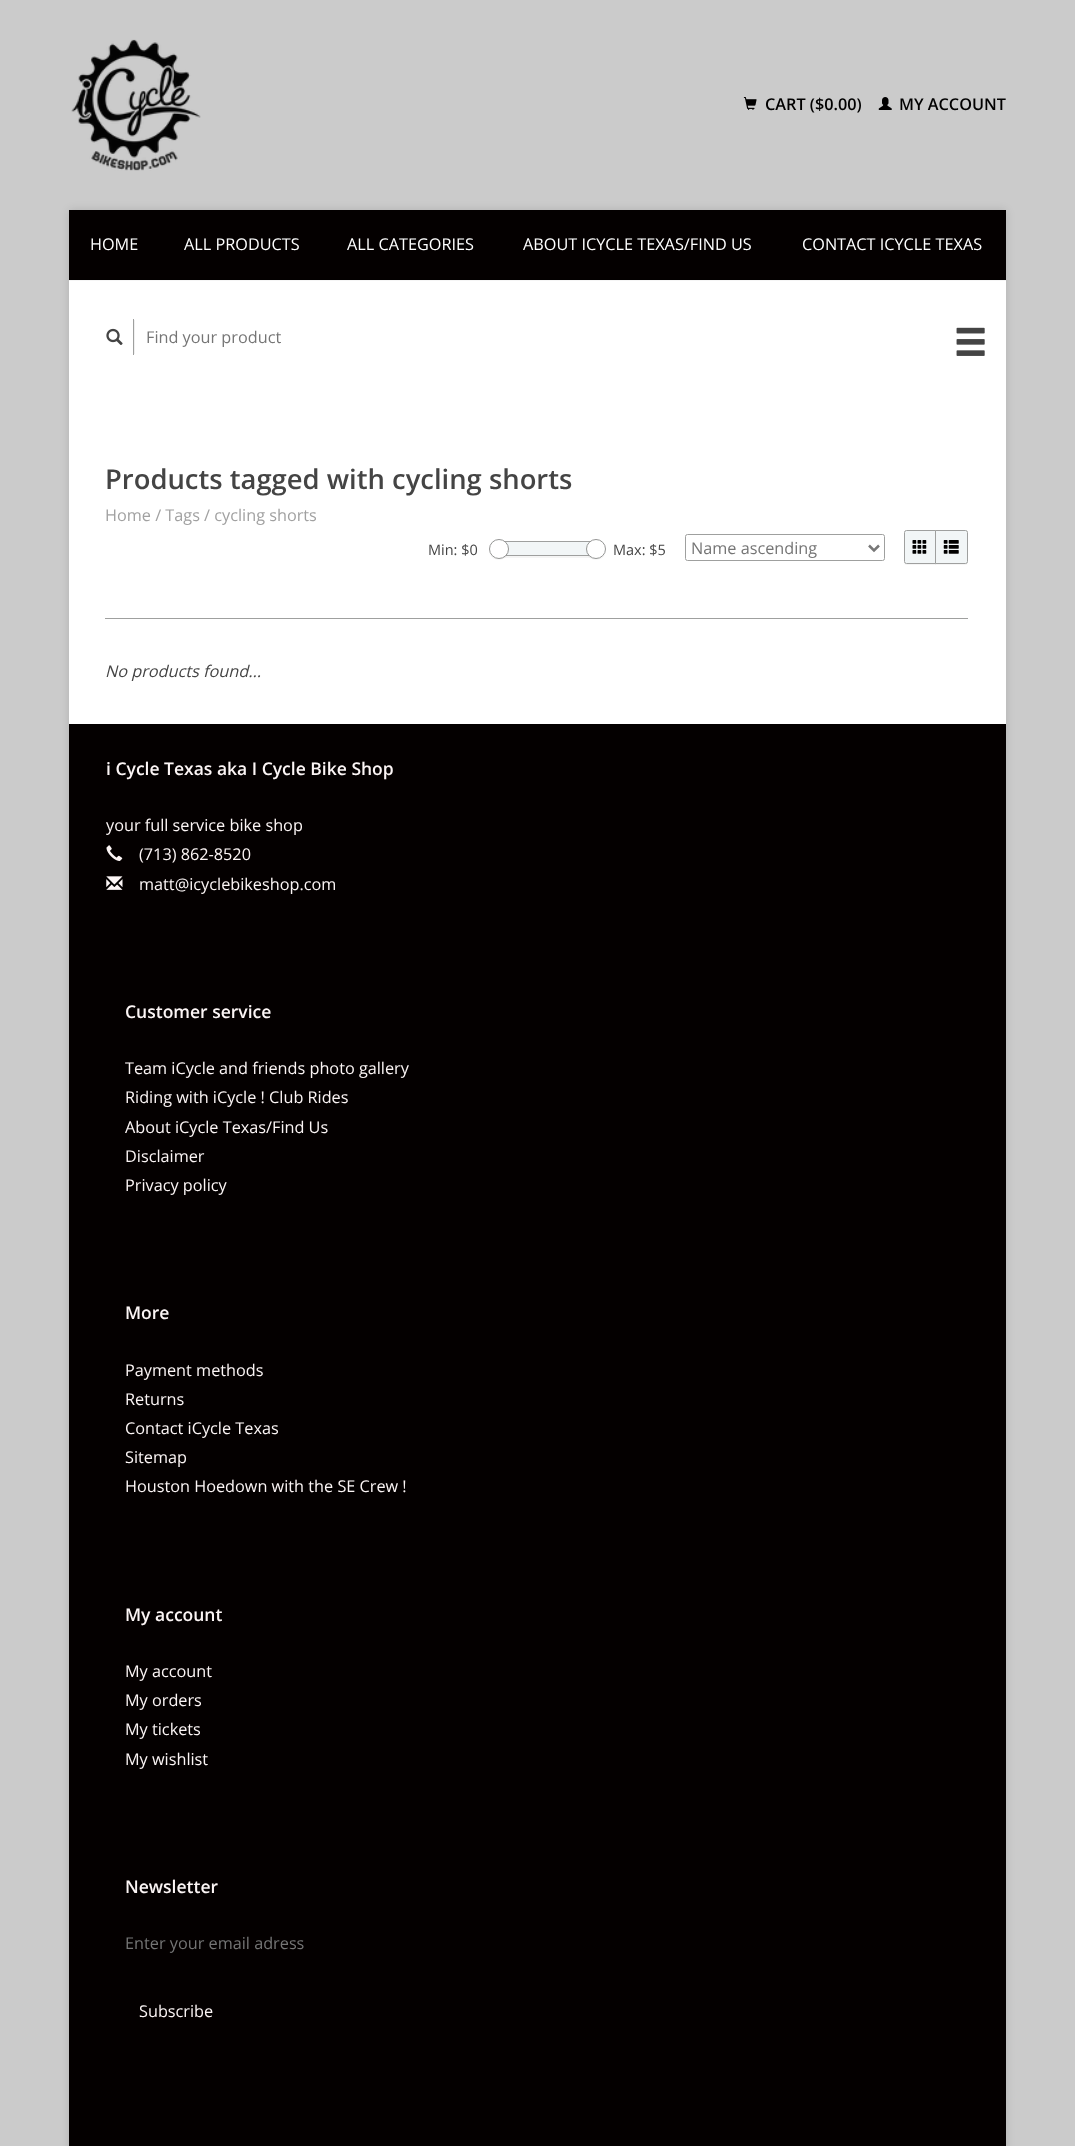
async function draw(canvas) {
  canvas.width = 1075;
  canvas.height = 2146;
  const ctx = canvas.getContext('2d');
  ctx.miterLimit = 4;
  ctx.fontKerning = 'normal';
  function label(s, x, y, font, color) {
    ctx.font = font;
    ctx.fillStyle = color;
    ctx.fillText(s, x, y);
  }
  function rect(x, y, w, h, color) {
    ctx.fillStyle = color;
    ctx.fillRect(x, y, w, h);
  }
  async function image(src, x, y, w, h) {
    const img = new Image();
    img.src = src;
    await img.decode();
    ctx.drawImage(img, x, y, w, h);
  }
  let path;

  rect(0, 0, 1075, 2146, '#cbcbcb');
  await image('assets/img1.png', 71, 39, 130, 132);
  await image('assets/img2.png', 743, 97, 14, 13);
  label('CART ($0.00)', 765, 110, '600 16.25px Open Sans', '#010000');
  await image('assets/img3.png', 878, 97, 14, 13);
  label('MY ACCOUNT', 899, 110, '600 16.25px Open Sans', '#010000');
  ctx.fillStyle = '#00000021';
  ctx.filter = 'blur(4.5px)';
  ctx.beginPath();
  ctx.roundRect(69, 210, 937, 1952, 2.5);
  ctx.fill();
  ctx.filter = 'none';
  rect(69, 281, 937, 443, '#fff');
  rect(69, 280, 937, 1, '#f5f5f5');
  rect(69, 279, 937, 1, '#030000');
  rect(69, 210, 937, 69, '#040000');
  label('HOME', 90, 250, '16.25px Open Sans', '#fff');
  label('ALL PRODUCTS', 184, 250, '16.25px Open Sans', '#fff');
  label('ALL CATEGORIES', 347, 250, '16.25px Open Sans', '#fff');
  label('ABOUT ICYCLE TEXAS/FIND US', 523, 250, '16.25px Open Sans', '#fff');
  label('CONTACT ICYCLE TEXAS', 802, 250, '16.25px Open Sans', '#fff');
  ctx.save();
  ctx.beginPath();
  ctx.rect(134, 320, 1, 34);
  ctx.clip();
  ctx.fillStyle = '#0000000f';
  ctx.filter = 'blur(0.5px)';
  ctx.beginPath();
  ctx.rect(100, 320, 35, 34);
  ctx.fill();
  ctx.filter = 'none';
  ctx.restore();
  rect(133, 319, 1, 36, '#9fa09f');
  await image('assets/img4.png', 106, 328, 17, 17);
  label('Find your product', 146, 343, '16.25px Open Sans', '#757575');
  await image('assets/img5.png', 956, 327, 29, 29);
  label('Products tagged with cycling shorts', 105, 489, '600 27.4px Open Sans', '#444');
  label('Home / Tags / cycling shorts', 105, 521, '16.25px Open Sans', '#a1a1a1');
  label('Min: $0', 428, 555, '14.5px Open Sans', '#444');
  ctx.fillStyle = '#f5f5f5';
  path = new Path2D('M500 556V558H598V543V556Z');
  ctx.fill(path);
  rect(506, 542, 83, 13, '#f2f6f7');
  ctx.strokeStyle = '#9fa09f';
  ctx.strokeRect(500.5, 541.5, 97, 14);
  ctx.fillStyle = '#0000000a';
  path = new Path2D('M489 551.5C491 565 512.5 561 508.5 547.5C510.5 559.5 492.5 563 489 551.5Z');
  ctx.fill(path);
  ctx.fillStyle = '#fff';
  ctx.beginPath();
  ctx.arc(499, 549, 9.5, 0, 2 * Math.PI);
  ctx.fill();
  ctx.strokeStyle = '#949594';
  ctx.stroke();
  ctx.fillStyle = '#0000000a';
  path = new Path2D('M586.5 547.5C582.5 561 604 565 606 551.5C602.5 563 584.5 559.5 586.5 547.5Z');
  ctx.fill(path);
  ctx.fillStyle = '#fff';
  ctx.beginPath();
  ctx.arc(596, 549, 9.5, 0, 2 * Math.PI);
  ctx.fill();
  ctx.stroke();
  label('Max: $5', 613, 555, '14.5px Open Sans', '#444');
  ctx.beginPath();
  ctx.roundRect(685.5, 534.5, 199, 26, 2);
  ctx.strokeStyle = '#9fa09f';
  ctx.stroke();
  path = new Path2D('M869 545.5L874 550.5L879 545.5');
  ctx.strokeStyle = '#777';
  ctx.lineWidth = 2.5;
  ctx.stroke(path);
  label('Name ascending', 691, 554, '16.25px Open Sans', '#757575');
  ctx.fillStyle = '#f5f5f5';
  path = new Path2D('M904 562.5C904 564 905 565 906.5 565H936V564H906C905.5 564 904.5 563 904 562.5Z');
  ctx.fill(path);
  ctx.fillStyle = '#f2f6f7';
  ctx.beginPath();
  ctx.roundRect(904.5, 530.5, 31, 33, [2, 0, 0, 2]);
  ctx.fill();
  ctx.strokeStyle = '#9fa09f';
  ctx.lineWidth = 1;
  ctx.stroke();
  await image('assets/img6.png', 912, 540, 15, 14);
  ctx.fillStyle = '#0000000a';
  path = new Path2D('M935 564V565H965.5C967 565 968 564 968 562.5V533.5C968 533 968 532.5 967.5 532V556.5C967.5 558 968.5 563 965.5 563.5Z');
  ctx.fill(path);
  ctx.fillStyle = '#f2f6f7';
  ctx.beginPath();
  ctx.roundRect(935.5, 530.5, 32, 33, [0, 2, 2, 0]);
  ctx.fill();
  ctx.stroke();
  await image('assets/img7.png', 943, 540, 16, 14);
  rect(105, 618, 863, 1, '#9fa09f');
  label('No products found...', 105, 677, 'italic 16.25px Open Sans', '#444');
  rect(69, 724, 937, 1422, '#040000');
  label('i Cycle Texas aka I Cycle Bike Shop', 106, 775, '600 17.5px Open Sans', '#fcf5f5');
  label('your full service bike shop', 106, 831, '16.25px Open Sans', '#fcf5f5');
  await image('assets/img8.png', 106, 845, 17, 16);
  label('(713) 862-8520', 139, 860, '16.25px Open Sans', '#fcf5f5');
  await image('assets/img9.png', 106, 876, 17, 14);
  label('matt@icyclebikeshop.com', 139, 890, '16.25px Open Sans', '#fcf5f5');
  label('Customer service', 125, 1018, '600 17.5px Open Sans', '#fcf5f5');
  label('Team iCycle and friends photo gallery', 125, 1074, '16.25px Open Sans', '#fcf5f5');
  label('Riding with iCycle ! Club Rides', 125, 1103, '16.25px Open Sans', '#fcf5f5');
  label('About iCycle Texas/Find Us', 125, 1133, '16.25px Open Sans', '#fcf5f5');
  label('Disclaimer', 125, 1162, '16.25px Open Sans', '#fcf5f5');
  label('Privacy policy', 125, 1191, '16.25px Open Sans', '#fcf5f5');
  label('More', 125, 1319, '600 17.5px Open Sans', '#fcf5f5');
  label('Payment methods', 125, 1376, '16.25px Open Sans', '#fcf5f5');
  label('Returns', 125, 1405, '16.25px Open Sans', '#fcf5f5');
  label('Contact iCycle Texas', 125, 1434, '16.25px Open Sans', '#fcf5f5');
  label('Sitemap', 125, 1463, '16.25px Open Sans', '#fcf5f5');
  label('Houston Hoedown with the SE Crew !', 125, 1492, '16.25px Open Sans', '#fcf5f5');
  label('My account', 125, 1621, '600 17.5px Open Sans', '#fcf5f5');
  label('My account', 125, 1677, '16.25px Open Sans', '#fcf5f5');
  label('My orders', 125, 1706, '16.25px Open Sans', '#fcf5f5');
  label('My tickets', 125, 1735, '16.25px Open Sans', '#fcf5f5');
  label('My wishlist', 125, 1765, '16.25px Open Sans', '#fcf5f5');
  label('Newsletter', 125, 1893, '600 17.5px Open Sans', '#fcf5f5');
  label('Enter your email adress', 125, 1949, '16.25px Open Sans', '#757575');
  label('Subscribe', 139, 2017, '16.25px Open Sans', '#fcf5f5');
}

draw(document.querySelector('canvas'));
